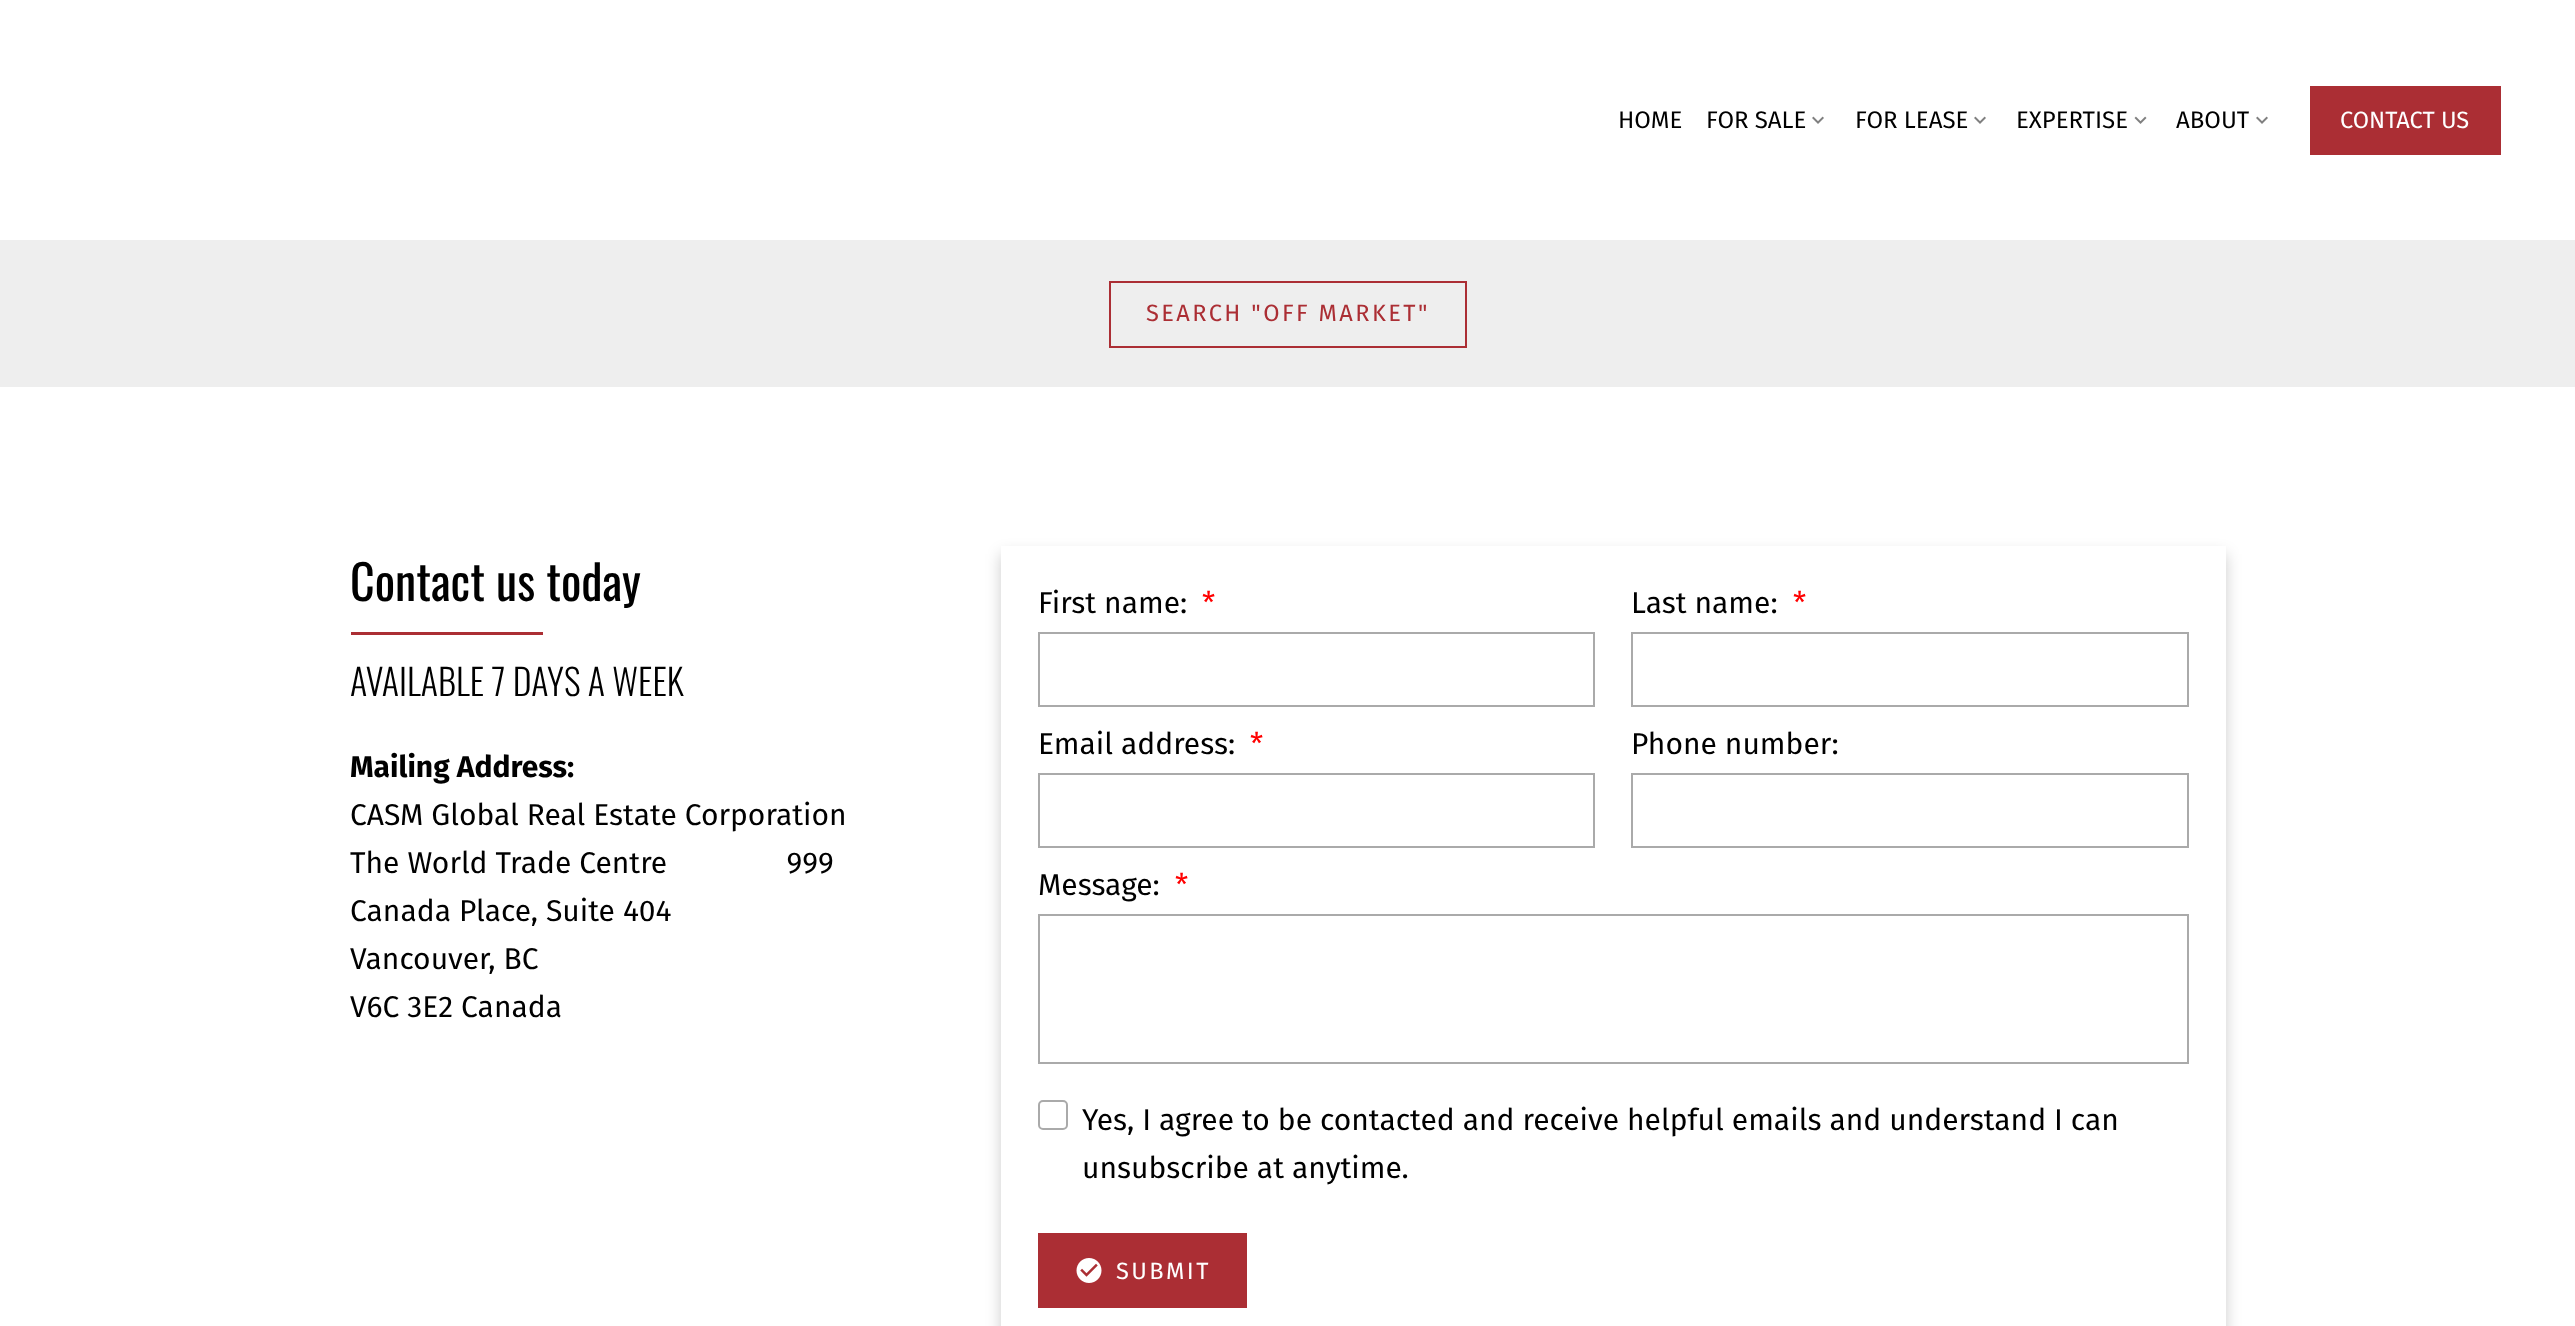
async function draw(canvas) {
  canvas.width = 2575;
  canvas.height = 1326;
  const ctx = canvas.getContext('2d');
  ctx.miterLimit = 4;
  ctx.fontKerning = 'normal';
  function label(s, x, y, font, color) {
    ctx.font = font;
    ctx.fillStyle = color;
    ctx.fillText(s, x, y);
  }
  function rect(x, y, w, h, color) {
    ctx.fillStyle = color;
    ctx.fillRect(x, y, w, h);
  }
  async function image(src, x, y, w, h) {
    const img = new Image();
    img.src = src;
    await img.decode();
    ctx.drawImage(img, x, y, w, h);
  }
  let path;

  rect(0, 0, 2575, 1326, '#fff');
  label('HOME', 1618, 128, '24px Fira Sans', '#000');
  label('FOR SALE', 1706, 128, '24px Fira Sans', '#000');
  await image('assets/img1.png', 1812, 116, 12, 8);
  label('FOR LEASE', 1855, 128, '24px Fira Sans', '#000');
  await image('assets/img1.png', 1974, 116, 12, 8);
  label('EXPERTISE', 2016, 128, '24px Fira Sans', '#000');
  await image('assets/img2.png', 2134, 116, 13, 8);
  label('ABOUT', 2176, 128, '24px Fira Sans', '#000');
  await image('assets/img1.png', 2256, 116, 12, 8);
  rect(2310, 86, 191, 69, '#ab2e34');
  label('CONTACT US', 2340, 128, '23.6px Fira Sans', '#fff');
  rect(0, 240, 2575, 147, '#eee');
  ctx.strokeStyle = '#ab2e34';
  ctx.lineWidth = 2;
  ctx.strokeRect(1110, 282, 356, 65);
  ctx.letterSpacing = '2.4px';
  label('SEARCH "OFF MARKET"', 1146, 321, '23.6px Fira Sans', '#ab2e34');
  ctx.letterSpacing = '0px';
  label('Contact us today', 350, 601, '48px Oswald', '#000');
  rect(351, 632, 192, 3, '#ab2e34');
  label('AVAILABLE 7 DAYS A WEEK', 350, 696, '300 36px Oswald', '#000');
  label('Mailing Address:', 350, 777, 'bold 30px Fira Sans', '#000');
  label('CASM Global Real Estate Corporation', 350, 825, '30px Fira Sans', '#000');
  label('The World Trade Centre               999', 350, 873, '30px Fira Sans', '#000');
  label('Canada Place, Suite 404', 350, 921, '30px Fira Sans', '#000');
  label('Vancouver, BC', 350, 969, '30px Fira Sans', '#000');
  label('V6C 3E2 Canada', 350, 1017, '30px Fira Sans', '#000');
  ctx.save();
  path = new Path2D('M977 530H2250V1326H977ZM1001 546H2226V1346H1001Z');
  ctx.clip(path, 'evenodd');
  ctx.fillStyle = '#00000033';
  ctx.filter = 'blur(7.5px)';
  ctx.beginPath();
  ctx.rect(1001, 554, 1225, 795);
  ctx.fill();
  ctx.filter = 'none';
  ctx.restore();
  label('First name:', 1038, 613, '30px Fira Sans', '#000');
  label('*', 1202, 613, '30px Fira Sans', '#f00');
  ctx.strokeStyle = '#aaa';
  ctx.strokeRect(1039, 633, 555, 73);
  label('Last name:', 1631, 613, '30px Fira Sans', '#000');
  label('*', 1793, 613, '30px Fira Sans', '#f00');
  ctx.strokeRect(1632, 633, 556, 73);
  label('Email address:', 1038, 754, '30px Fira Sans', '#000');
  label('*', 1250, 754, '30px Fira Sans', '#f00');
  ctx.strokeRect(1039, 774, 555, 73);
  label('Phone number:', 1631, 754, '30px Fira Sans', '#000');
  ctx.strokeRect(1632, 774, 556, 73);
  label('Message:', 1038, 895, '30px Fira Sans', '#000');
  label('*', 1175, 895, '30px Fira Sans', '#f00');
  ctx.strokeRect(1039, 915, 1149, 148);
  ctx.beginPath();
  ctx.roundRect(1039, 1101, 28, 28, 4);
  ctx.stroke();
  label('Yes, I agree to be contacted and receive helpful emails and understand I can', 1082, 1130, '30px Fira Sans', '#000');
  label('unsubscribe at anytime.', 1082, 1178, '30px Fira Sans', '#000');
  rect(1038, 1233, 209, 75, '#ab2e34');
  await image('assets/img3.png', 1076, 1258, 26, 25);
  ctx.letterSpacing = '2.4px';
  label('SUBMIT', 1116, 1279, '23.6px Fira Sans', '#fff');
}

draw(document.querySelector('canvas'));
